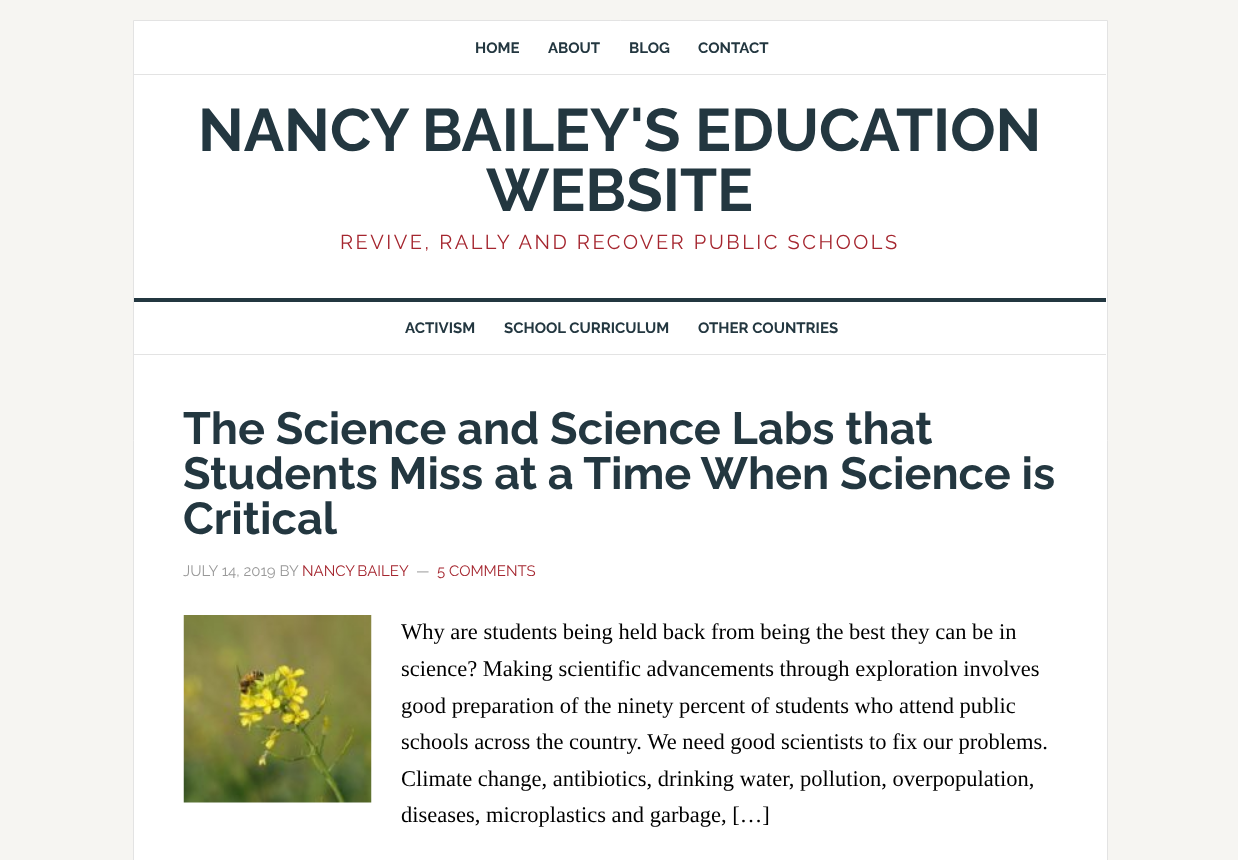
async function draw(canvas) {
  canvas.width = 1238;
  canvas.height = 860;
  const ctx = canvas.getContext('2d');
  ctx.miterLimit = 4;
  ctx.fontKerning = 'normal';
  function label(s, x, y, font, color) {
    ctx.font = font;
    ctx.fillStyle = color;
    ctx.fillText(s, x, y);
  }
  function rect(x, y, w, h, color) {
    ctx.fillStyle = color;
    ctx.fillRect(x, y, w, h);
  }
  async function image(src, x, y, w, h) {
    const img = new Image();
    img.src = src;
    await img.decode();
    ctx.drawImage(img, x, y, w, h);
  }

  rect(0, 0, 1238, 860, '#f6f5f2');
  ctx.fillStyle = '#fff';
  ctx.beginPath();
  ctx.rect(133.5, 20.5, 974, 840);
  ctx.fill();
  ctx.strokeStyle = '#e3e3e3';
  ctx.stroke();
  rect(134, 74, 972, 1, '#e3e3e3');
  label('HOME', 475, 53, 'bold 15px Raleway', '#233740');
  label('ABOUT', 548, 53, 'bold 15px Raleway', '#233740');
  label('BLOG', 629, 53, 'bold 15px Raleway', '#233740');
  label('CONTACT', 698, 53, 'bold 15px Raleway', '#233740');
  label('NANCY BAILEY\'S EDUCATION', 198, 151, 'bold 60px Raleway', '#233740');
  label('WEBSITE', 486, 211, 'bold 60px Raleway', '#233740');
  ctx.letterSpacing = '2.5px';
  label('REVIVE, RALLY AND RECOVER PUBLIC SCHOOLS', 340, 249, '20px Raleway', '#a5262f');
  rect(134, 298, 972, 4, '#233740');
  rect(134, 354, 972, 1, '#e3e3e3');
  ctx.letterSpacing = '0px';
  label('ACTIVISM', 405, 333, 'bold 15px Raleway', '#233740');
  label('SCHOOL CURRICULUM', 504, 333, 'bold 15px Raleway', '#233740');
  label('OTHER COUNTRIES', 698, 333, 'bold 15px Raleway', '#233740');
  label('The Science and Science Labs that', 183, 444, 'bold 45px Raleway', '#233740');
  label('Students Miss at a Time When Science is', 183, 489, 'bold 45px Raleway', '#233740');
  label('Critical', 183, 534, 'bold 45px Raleway', '#233740');
  label('JULY 14, 2019 BY', 183, 576, '15px Raleway', '#999');
  ctx.wordSpacing = '-1px';
  label('NANCY BAILEY', 302, 576, '15px Raleway', '#a5262f');
  ctx.wordSpacing = '0px';
  label('—', 416, 576, '15px Raleway', '#999');
  label('5 COMMENTS', 437, 576, '15px Raleway', '#a5262f');
  await image('assets/img1.png', 183, 615, 189, 188);
  label('Why are students being held back from being the best they can be in', 401, 639, '22.5px Liberation Serif', '#000');
  label('science? Making scientific advancements through exploration involves', 401, 676, '22.5px Liberation Serif', '#000');
  label('good preparation of the ninety percent of students who attend public', 401, 713, '22.5px Liberation Serif', '#000');
  label('schools across the country. We need good scientists to fix our problems.', 401, 749, '22.5px Liberation Serif', '#000');
  label('Climate change, antibiotics, drinking water, pollution, overpopulation,', 401, 786, '22.5px Liberation Serif', '#000');
  label('diseases, microplastics and garbage, […]', 401, 822, '22.5px Liberation Serif', '#000');
}

draw(document.querySelector('canvas'));
